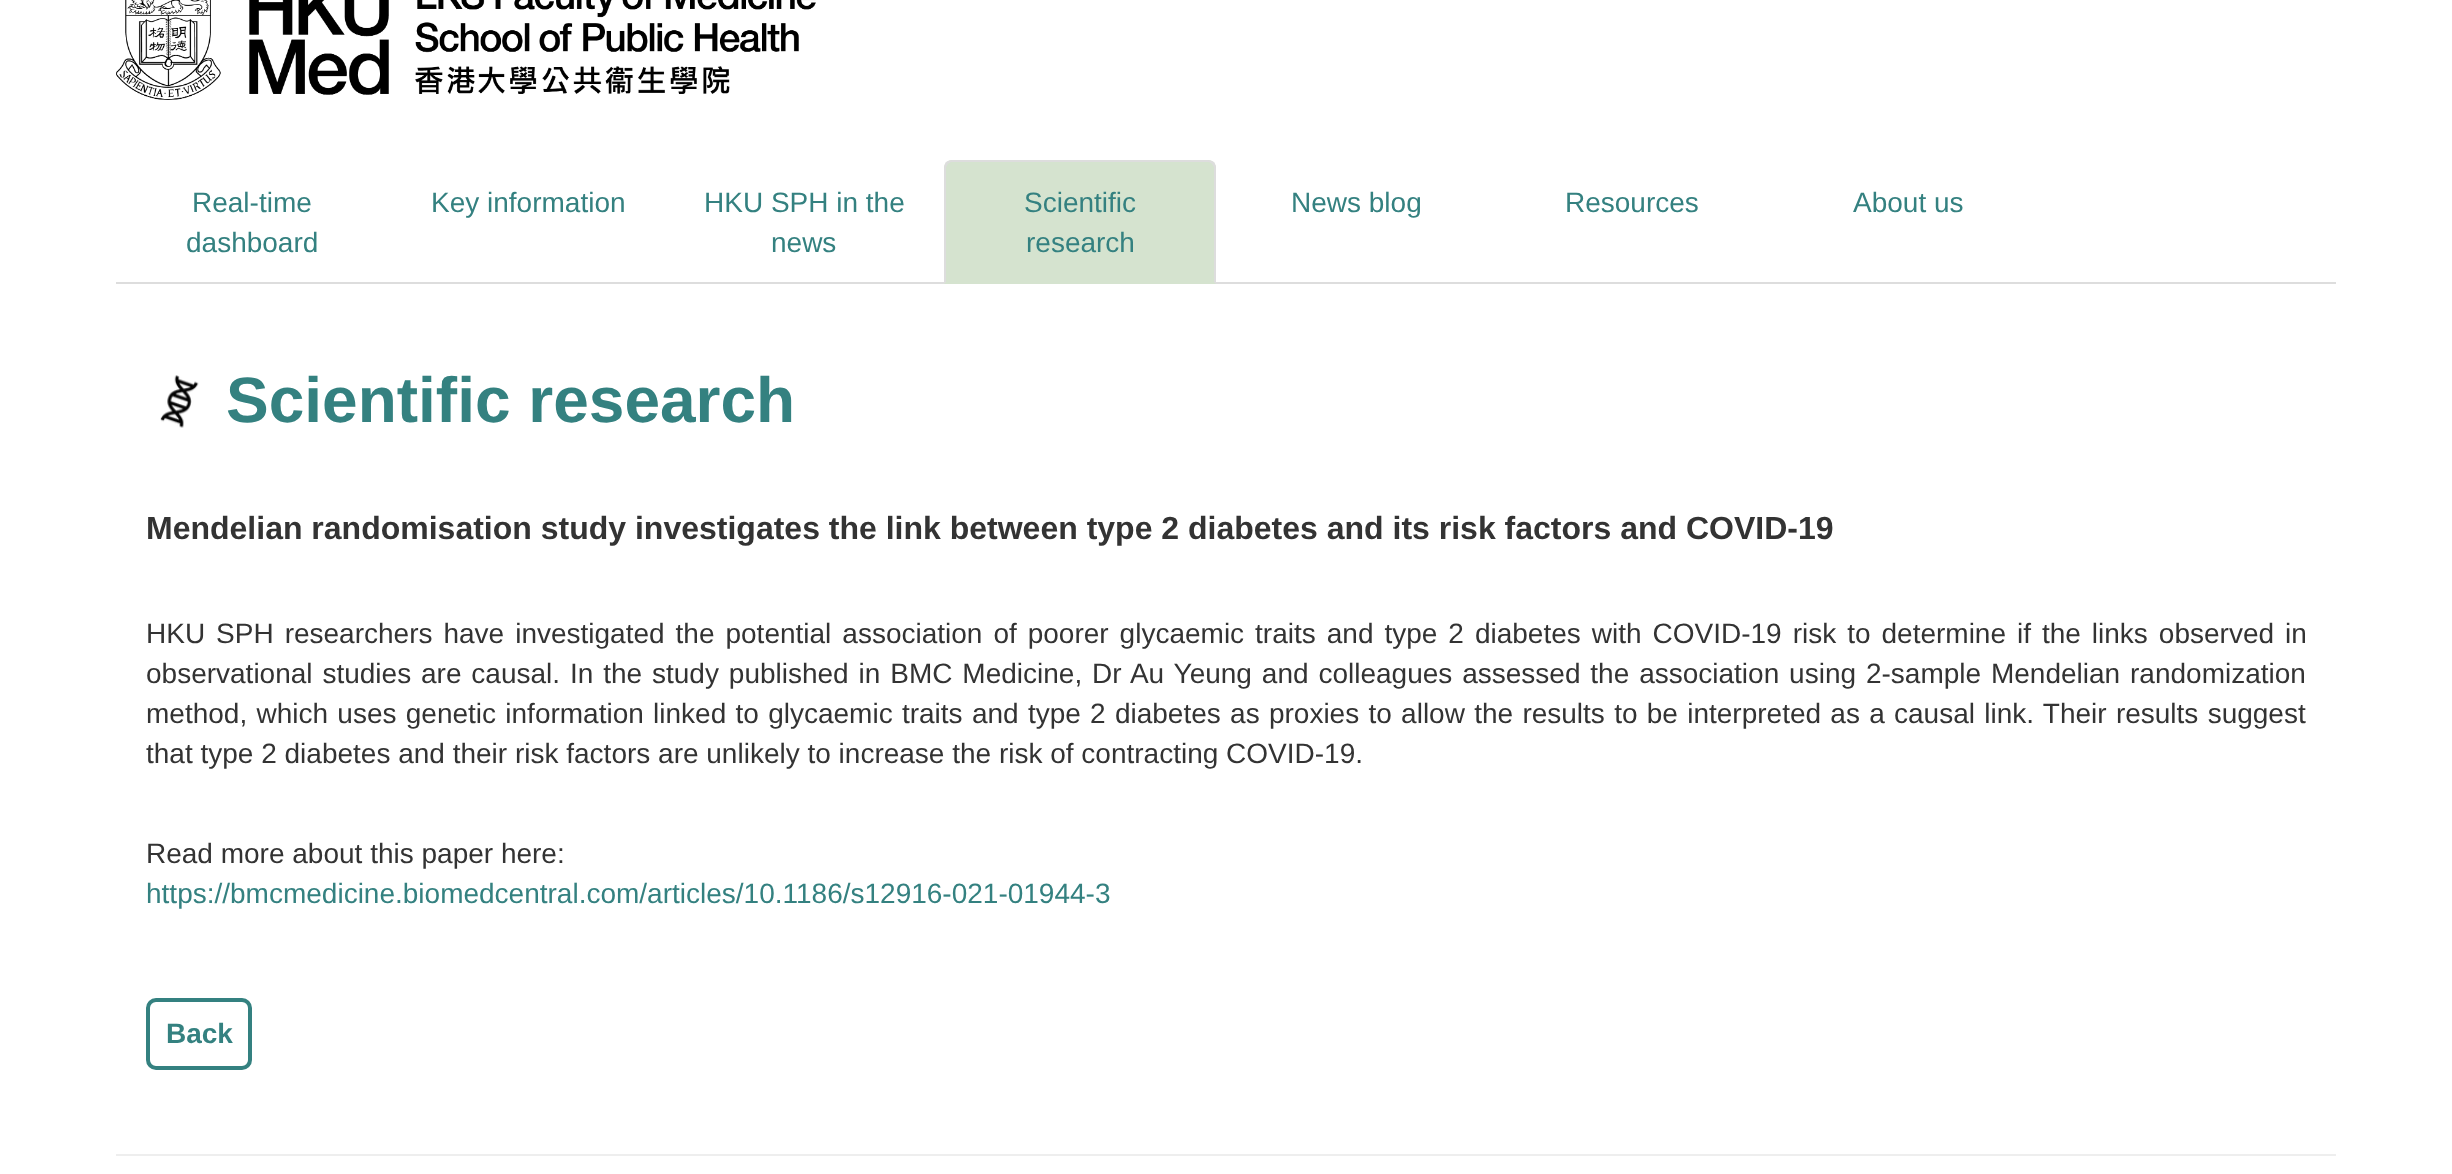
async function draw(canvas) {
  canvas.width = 2452;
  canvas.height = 1174;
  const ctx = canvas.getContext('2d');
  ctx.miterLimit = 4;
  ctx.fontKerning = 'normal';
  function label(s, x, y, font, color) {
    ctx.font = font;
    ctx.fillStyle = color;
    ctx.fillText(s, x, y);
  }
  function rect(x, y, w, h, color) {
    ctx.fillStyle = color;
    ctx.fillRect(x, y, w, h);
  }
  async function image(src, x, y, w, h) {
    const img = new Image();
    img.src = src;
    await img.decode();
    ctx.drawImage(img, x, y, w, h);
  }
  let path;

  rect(0, 0, 2452, 1174, '#fff');
  await image('assets/img1.png', 116, 0, 700, 100);
  rect(116, 282, 2220, 2, '#ddd');
  label('Real-time', 192, 212, '28px Liberation Sans', '#348180');
  label('dashboard', 186, 252, '28px Liberation Sans', '#348180');
  label('Key information', 431, 212, '28px Liberation Sans', '#348180');
  label('HKU SPH in the', 704, 212, '28px Liberation Sans', '#348180');
  label('news', 771, 252, '28px Liberation Sans', '#348180');
  ctx.fillStyle = '#d5e3cf';
  ctx.beginPath();
  ctx.roundRect(944, 160, 272, 124, [8, 8, 0, 0]);
  ctx.fill();
  ctx.fillStyle = '#ddd';
  path = new Path2D('M952 160C950 160 948 161 946 162L948 164C949 163 950 162 952 162H1208C1210 162 1211 163 1212 164L1214 162C1212 161 1210 160 1208 160Z');
  ctx.fill(path);
  path = new Path2D('M1216 284V168C1216 166 1215 164 1214 162L1212 164L1214 167V282Z');
  ctx.fill(path);
  path = new Path2D('M944 284L946 282V167L948 164L946 162C945 164 944 166 944 168Z');
  ctx.fill(path);
  label('Scientific', 1024, 212, '28px Liberation Sans', '#348180');
  label('research', 1026, 252, '28px Liberation Sans', '#348180');
  label('News blog', 1291, 212, '28px Liberation Sans', '#348180');
  label('Resources', 1565, 212, '28px Liberation Sans', '#348180');
  label('About us', 1853, 212, '28px Liberation Sans', '#348180');
  await image('assets/img2.png', 160, 375, 39, 53);
  label('Scientific research', 226, 422, 'bold 64px Liberation Sans', '#348180');
  label('Mendelian randomisation study investigates the link between type 2 diabetes and its risk factors and COVID-19', 146, 539, 'bold 32px Liberation Sans', '#333');
  ctx.wordSpacing = '3.2px';
  label('HKU SPH researchers have investigated the potential association of poorer glycaemic traits and type 2 diabetes with COVID-19 risk to determine if the links observed in', 146, 643, '28px Liberation Sans', '#333');
  ctx.wordSpacing = '2.1px';
  label('observational studies are causal. In the study published in BMC Medicine, Dr Au Yeung and colleagues assessed the association using 2-sample Mendelian randomization', 146, 683, '28px Liberation Sans', '#333');
  ctx.wordSpacing = '1.5px';
  label('method, which uses genetic information linked to glycaemic traits and type 2 diabetes as proxies to allow the results to be interpreted as a causal link. Their results suggest', 146, 723, '28px Liberation Sans', '#333');
  ctx.wordSpacing = '0px';
  label('that type 2 diabetes and their risk factors are unlikely to increase the risk of contracting COVID-19.', 146, 763, '28px Liberation Sans', '#333');
  label('Read more about this paper here:', 146, 863, '28px Liberation Sans', '#333');
  label('https://bmcmedicine.biomedcentral.com/articles/10.1186/s12916-021-01944-3', 146, 903, '28px Liberation Sans', '#348180');
  ctx.beginPath();
  ctx.roundRect(148, 1000, 102, 68, 8);
  ctx.strokeStyle = '#348180';
  ctx.lineWidth = 4;
  ctx.stroke();
  label('Back', 166, 1043, 'bold 28px Liberation Sans', '#348180');
  rect(116, 1154, 2220, 2, '#eee');
}

draw(document.querySelector('canvas'));
